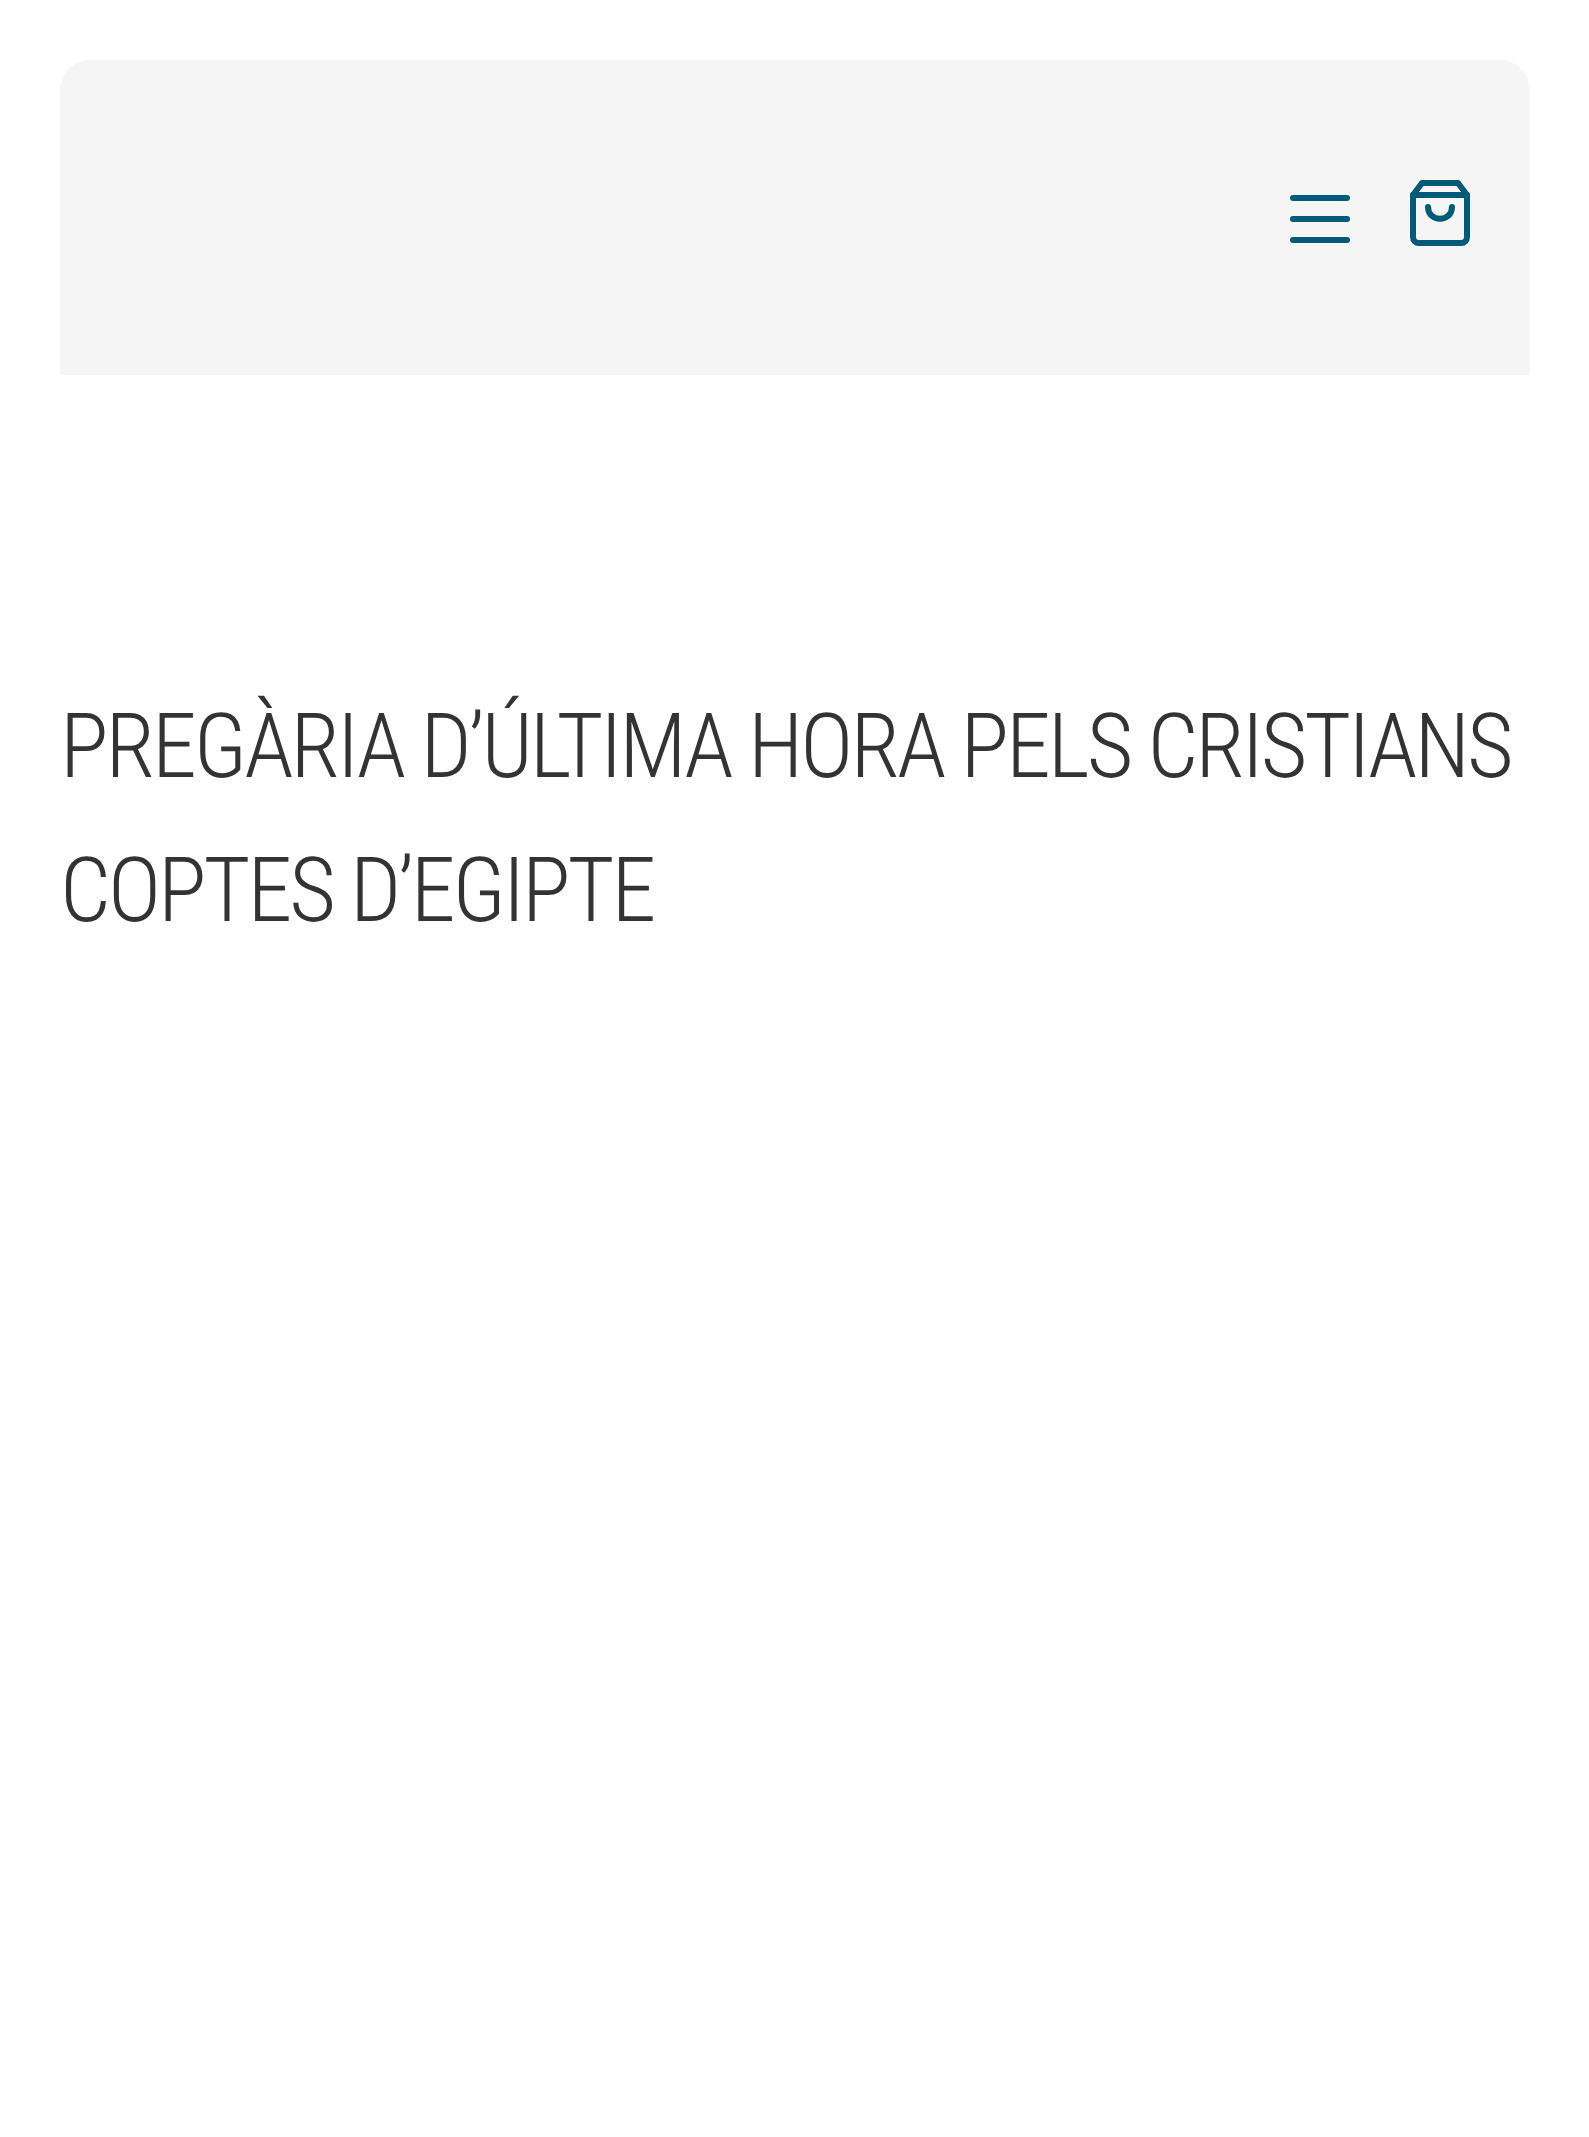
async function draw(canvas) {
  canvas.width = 1589;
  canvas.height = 2137;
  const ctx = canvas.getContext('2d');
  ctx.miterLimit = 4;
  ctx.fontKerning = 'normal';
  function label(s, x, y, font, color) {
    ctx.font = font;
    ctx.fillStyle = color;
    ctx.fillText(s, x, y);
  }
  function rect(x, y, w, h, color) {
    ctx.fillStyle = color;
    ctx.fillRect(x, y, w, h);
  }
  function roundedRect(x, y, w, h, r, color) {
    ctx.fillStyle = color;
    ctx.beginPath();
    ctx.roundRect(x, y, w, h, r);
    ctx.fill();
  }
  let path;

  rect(0, 0, 1589, 2137, '#fff');
  ctx.fillStyle = '#f5f5f5';
  ctx.beginPath();
  ctx.roundRect(60, 60, 1470, 315, [30, 30, 0, 0]);
  ctx.fill();
  roundedRect(1290, 195, 60, 6, 3, '#005b79');
  roundedRect(1290, 216, 60, 6, 3, '#005b79');
  roundedRect(1290, 237, 60, 6, 3, '#005b79');
  path = new Path2D('M1422 183L1413 195V237C1413 240.5 1415.5 243 1419 243H1461C1464.5 243 1467 240.5 1467 237V195L1458 183Z');
  ctx.strokeStyle = '#005b79';
  ctx.lineWidth = 6;
  ctx.lineCap = 'round';
  ctx.lineJoin = 'round';
  ctx.stroke(path);
  path = new Path2D('M1413 195H1467M1452 207C1452 222.5 1428 222.5 1428 207');
  ctx.stroke(path);
  ctx.letterSpacing = '-3px';
  label('PREGÀRIA D’ÚLTIMA HORA PELS CRISTIANS', 60, 777, '300 90px Roboto Condensed', '#333');
  label('COPTES D’EGIPTE', 60, 921, '300 90px Roboto Condensed', '#333');
}

draw(document.querySelector('canvas'));
